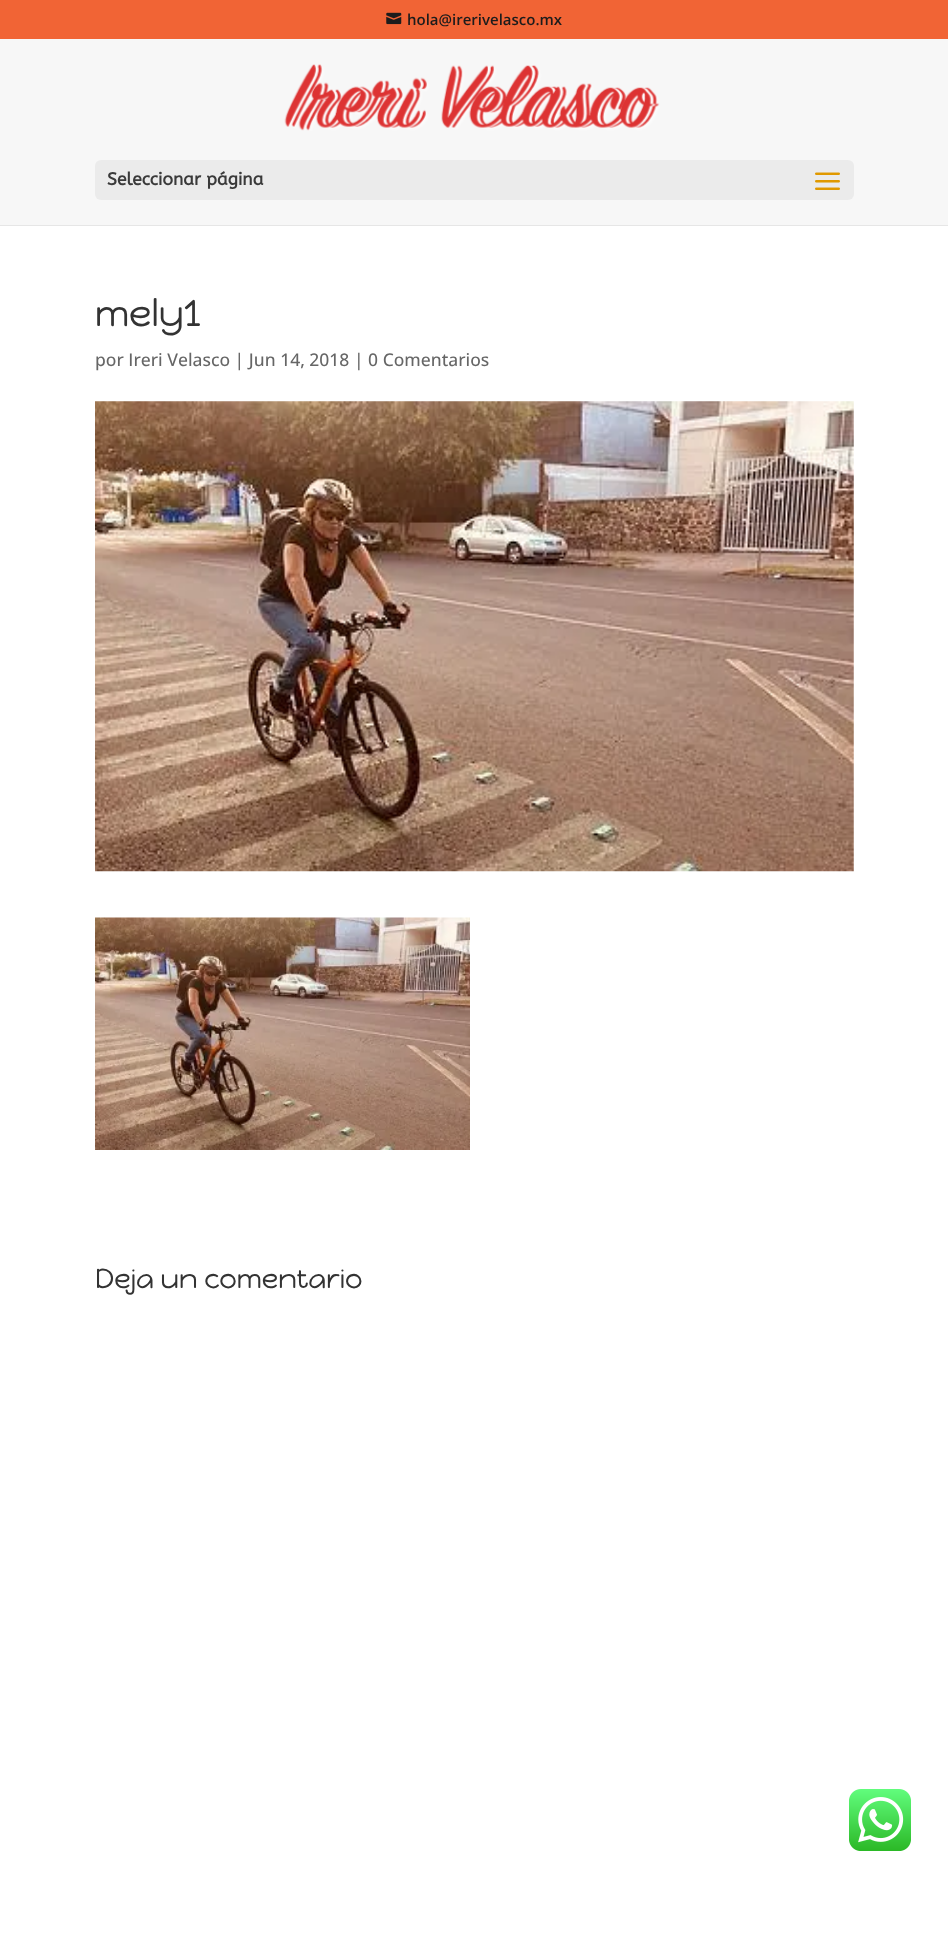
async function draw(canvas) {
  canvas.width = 948;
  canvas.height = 1951;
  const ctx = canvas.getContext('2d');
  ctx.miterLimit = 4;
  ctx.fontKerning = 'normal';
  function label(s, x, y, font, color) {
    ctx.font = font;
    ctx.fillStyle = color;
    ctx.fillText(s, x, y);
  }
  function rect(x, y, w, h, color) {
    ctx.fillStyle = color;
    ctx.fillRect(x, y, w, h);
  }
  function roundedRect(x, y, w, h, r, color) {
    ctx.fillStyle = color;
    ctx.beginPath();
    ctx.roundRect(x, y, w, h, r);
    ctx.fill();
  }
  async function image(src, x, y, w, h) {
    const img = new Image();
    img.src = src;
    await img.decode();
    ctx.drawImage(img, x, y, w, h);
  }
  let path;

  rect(0, 0, 948, 1951, '#fff');
  rect(0, 0, 948, 39, '#f16435');
  await image('assets/img1.png', 386, 12, 16, 13);
  label('hola@irerivelasco.mx', 407, 25, '600 15px Open Sans', '#1c1c1c');
  ctx.fillStyle = '#e6e6e6';
  path = new Path2D('M0 225V226H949V40V225Z');
  ctx.fill(path);
  rect(0, 39, 948, 186, '#f7f7f7');
  await image('assets/img2.png', 284, 64, 376, 67);
  roundedRect(95, 160, 759, 40, 6, '#ebebeb');
  label('Seleccionar página', 107, 185, 'bold 17.5px ABeeZee', '#3a3a3a');
  await image('assets/img3.png', 815, 172, 25, 18);
  label('mely1', 95, 326, '37.5px Happy Monkey', '#333');
  label('por Ireri Velasco | Jun 14, 2018 | 0 Comentarios', 95, 366, '500 17.5px Open Sans', '#666');
  await image('assets/img4.png', 95, 401, 759, 471);
  await image('assets/img5.png', 95, 917, 375, 233);
  label('Deja un comentario', 95, 1288, '27.5px Happy Monkey', '#333');
  await image('assets/img6.png', 849, 1789, 62, 62);
}

draw(document.querySelector('canvas'));
